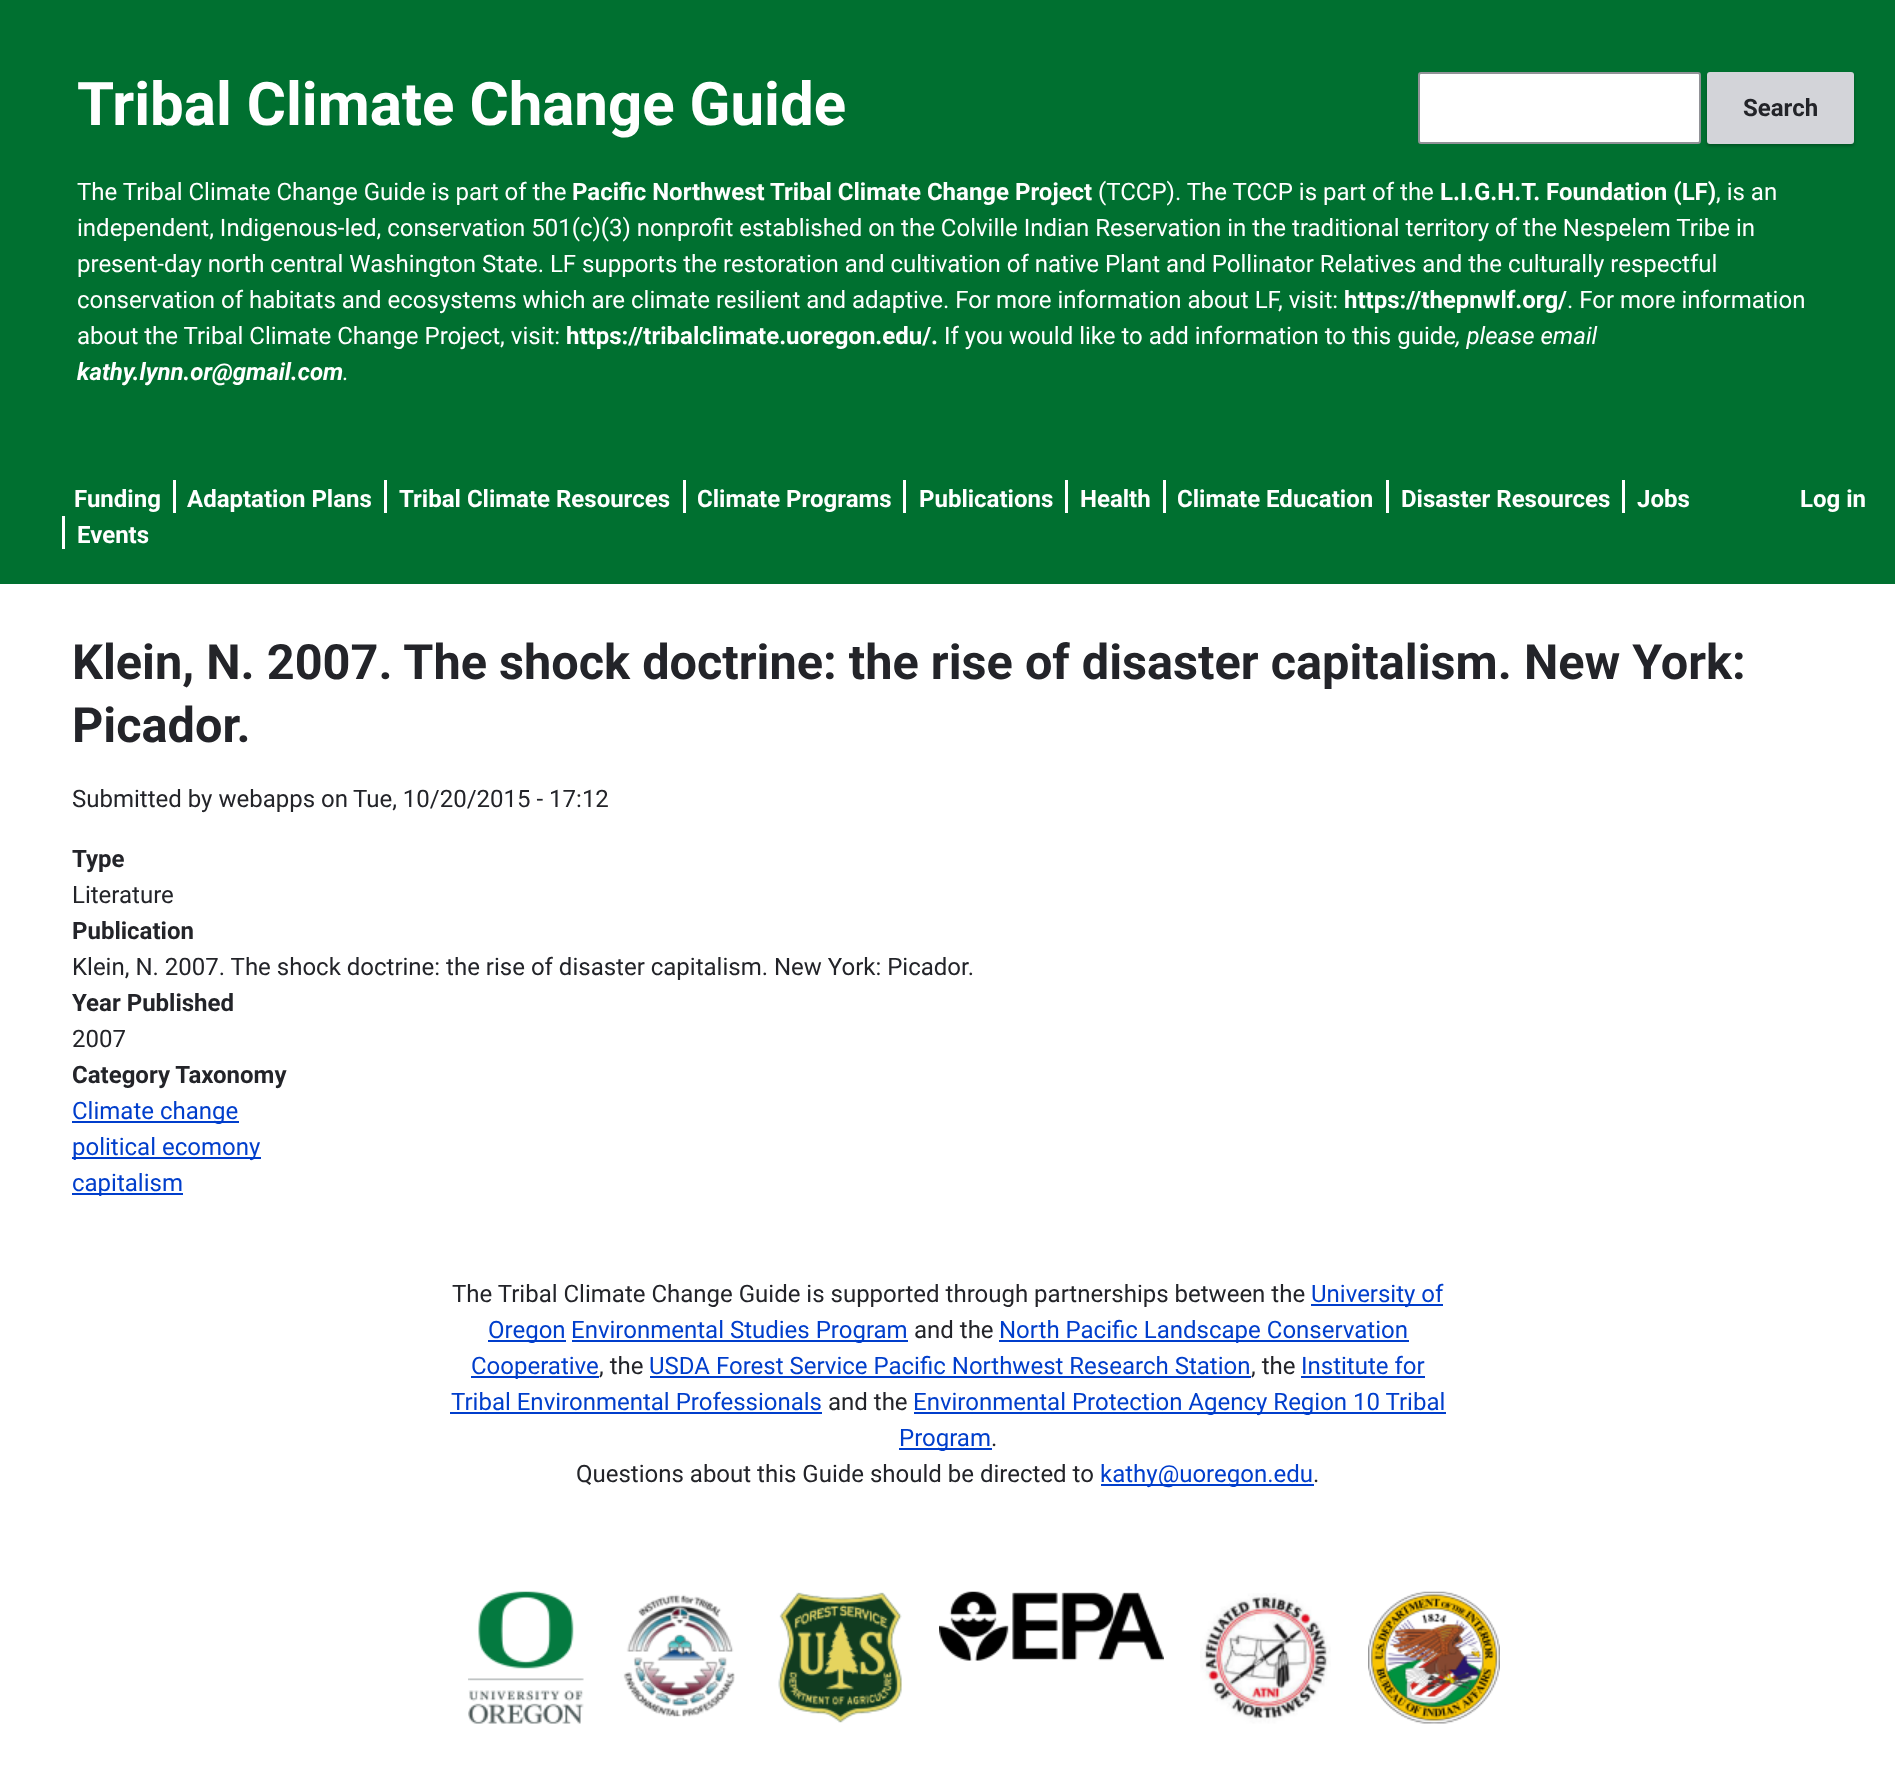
async function draw(canvas) {
  canvas.width = 1895;
  canvas.height = 1785;
  const ctx = canvas.getContext('2d');
  ctx.miterLimit = 4;
  ctx.fontKerning = 'normal';
  function label(s, x, y, font, color) {
    ctx.font = font;
    ctx.fillStyle = color;
    ctx.fillText(s, x, y);
  }
  function rect(x, y, w, h, color) {
    ctx.fillStyle = color;
    ctx.fillRect(x, y, w, h);
  }
  function roundedRect(x, y, w, h, r, color) {
    ctx.fillStyle = color;
    ctx.beginPath();
    ctx.roundRect(x, y, w, h, r);
    ctx.fill();
  }
  async function image(src, x, y, w, h) {
    const img = new Image();
    img.src = src;
    await img.decode();
    ctx.drawImage(img, x, y, w, h);
  }

  rect(0, 0, 1895, 1785, '#fff');
  rect(0, 0, 1895, 584, '#007030');
  label('Tribal Climate Change Guide', 77, 125, 'bold 60px Roboto', '#fff');
  ctx.beginPath();
  ctx.roundRect(1419, 73, 281, 70, 2);
  ctx.fill();
  ctx.strokeStyle = '#919297';
  ctx.lineWidth = 2;
  ctx.stroke();
  ctx.fillStyle = '#00000040';
  ctx.filter = 'blur(1.5px)';
  ctx.beginPath();
  ctx.roundRect(1707, 74, 147, 72, 3);
  ctx.fill();
  ctx.filter = 'none';
  roundedRect(1707, 72, 147, 72, 3, '#d3d4d9');
  label('Search', 1743, 116, 'bold 24px Roboto', '#232429');
  label('The Tribal Climate Change Guide is part of the', 77, 200, '24px Roboto', '#fff');
  label('Pacific Northwest Tribal Climate Change Project', 572, 200, 'bold 24px Roboto', '#fff');
  label('(TCCP). The TCCP is part of the', 1098, 200, '24px Roboto', '#fff');
  label('L.I.G.H.T. Foundation (LF)', 1440, 200, 'bold 24px Roboto', '#fff');
  label(', is an', 1716, 200, '24px Roboto', '#fff');
  label('independent, Indigenous-led, conservation 501(c)(3) nonprofit established on the Colville Indian Reservation in the traditional territory of the Nespelem Tribe in', 77, 236, '24px Roboto', '#fff');
  label('present-day north central Washington State. LF supports the restoration and cultivation of native Plant and Pollinator Relatives and the culturally respectful', 77, 272, '24px Roboto', '#fff');
  label('conservation of habitats and ecosystems which are climate resilient and adaptive. For more information about LF, visit:', 77, 308, '24px Roboto', '#fff');
  label('https://thepnwlf.org/', 1344, 308, 'bold 24px Roboto', '#fff');
  label('. For more information', 1567, 308, '24px Roboto', '#fff');
  label('about the Tribal Climate Change Project, visit:', 77, 344, '24px Roboto', '#fff');
  label('https://tribalclimate.uoregon.edu/.', 566, 344, 'bold 24px Roboto', '#fff');
  label('If you would like to add information to this guide', 944, 344, '24px Roboto', '#fff');
  label(', please email', 1456, 344, 'italic 24px Roboto', '#fff');
  label('kathy.lynn.or@gmail.com', 77, 380, 'italic bold 24px Roboto', '#fff');
  label('.', 343, 380, 'italic 24px Roboto', '#fff');
  label('Funding', 74, 507, 'bold 24px Roboto', '#fff');
  label('Adaptation Plans', 187, 507, 'bold 24px Roboto', '#fff');
  rect(173, 480, 3, 33, '#fff');
  label('Tribal Climate Resources', 399, 507, 'bold 24px Roboto', '#fff');
  rect(384, 480, 3, 33, '#fff');
  label('Climate Programs', 697, 507, 'bold 24px Roboto', '#fff');
  rect(683, 480, 3, 33, '#fff');
  label('Publications', 919, 507, 'bold 24px Roboto', '#fff');
  rect(903, 480, 3, 33, '#fff');
  label('Health', 1080, 507, 'bold 24px Roboto', '#fff');
  rect(1065, 480, 3, 33, '#fff');
  label('Climate Education', 1177, 507, 'bold 24px Roboto', '#fff');
  rect(1163, 480, 3, 33, '#fff');
  label('Disaster Resources', 1401, 507, 'bold 24px Roboto', '#fff');
  rect(1386, 480, 3, 33, '#fff');
  label('Jobs', 1637, 507, 'bold 24px Roboto', '#fff');
  rect(1622, 480, 3, 33, '#fff');
  label('Events', 77, 543, 'bold 24px Roboto', '#fff');
  rect(62, 516, 3, 33, '#fff');
  label('Log in', 1800, 507, 'bold 24px Roboto', '#fff');
  label('Klein, N. 2007. The shock doctrine: the rise of disaster capitalism. New York:', 72, 679, 'bold 48.65px Roboto', '#232429');
  label('Picador.', 72, 742, 'bold 48.65px Roboto', '#232429');
  label('Submitted by webapps on', 72, 807, '24px Roboto', '#232429');
  label('Tue, 10/20/2015 - 17:12', 353, 807, '24px Roboto', '#232429');
  label('Type', 72, 867, 'bold 24px Roboto', '#232429');
  label('Literature', 72, 903, '24px Roboto', '#232429');
  label('Publication', 72, 939, 'bold 24px Roboto', '#232429');
  label('Klein, N. 2007. The shock doctrine: the rise of disaster capitalism. New York: Picador.', 72, 975, '24px Roboto', '#232429');
  label('Year Published', 72, 1011, 'bold 24px Roboto', '#232429');
  label('2007', 72, 1047, '24px Roboto', '#232429');
  label('Category Taxonomy', 72, 1083, 'bold 24px Roboto', '#232429');
  rect(72, 1121, 167, 2, '#003ecc');
  label('Climate change', 72, 1119, '24px Roboto', '#003ecc');
  rect(72, 1157, 189, 2, '#003ecc');
  label('political ecomony', 72, 1155, '24px Roboto', '#003ecc');
  rect(72, 1193, 111, 2, '#003ecc');
  label('capitalism', 72, 1191, '24px Roboto', '#003ecc');
  label('The Tribal Climate Change Guide is supported through partnerships between the', 452, 1302, '24px Roboto', '#232429');
  rect(1311, 1304, 132, 2, '#003ecc');
  label('University of', 1311, 1302, '24px Roboto', '#003ecc');
  rect(488, 1340, 78, 2, '#003ecc');
  label('Oregon', 488, 1338, '24px Roboto', '#003ecc');
  rect(572, 1340, 336, 2, '#003ecc');
  label('Environmental Studies Program', 571, 1338, '24px Roboto', '#003ecc');
  label('and the', 914, 1338, '24px Roboto', '#232429');
  rect(999, 1340, 410, 2, '#003ecc');
  label('North Pacific Landscape Conservation', 999, 1338, '24px Roboto', '#003ecc');
  rect(471, 1376, 128, 2, '#003ecc');
  label('Cooperative', 471, 1374, '24px Roboto', '#003ecc');
  label(', the', 599, 1374, '24px Roboto', '#232429');
  label('USDA Forest Service Pacific Northwest Research Station', 649, 1374, '24px Roboto', '#003ecc');
  rect(650, 1376, 601, 2, '#003ecc');
  label(', the', 1251, 1374, '24px Roboto', '#232429');
  label('Institute for', 1301, 1374, '24px Roboto', '#003ecc');
  rect(1301, 1376, 124, 2, '#003ecc');
  label('Tribal Environmental Professionals', 451, 1410, '24px Roboto', '#003ecc');
  rect(450, 1412, 372, 2, '#003ecc');
  label('and the', 828, 1410, '24px Roboto', '#232429');
  rect(914, 1412, 532, 2, '#003ecc');
  label('Environmental Protection Agency Region 10 Tribal', 913, 1410, '24px Roboto', '#003ecc');
  rect(899, 1448, 93, 2, '#003ecc');
  label('Program', 899, 1446, '24px Roboto', '#003ecc');
  label('.', 991, 1446, '24px Roboto', '#232429');
  label('Questions about this Guide should be directed to', 576, 1482, '24px Roboto', '#232429');
  rect(1101, 1484, 213, 2, '#003ecc');
  label('kathy@uoregon.edu', 1100, 1482, '24px Roboto', '#003ecc');
  label('.', 1313, 1482, '24px Roboto', '#232429');
  await image('assets/img1.png', 468, 1591, 116, 133);
  await image('assets/img2.png', 623, 1594, 112, 123);
  await image('assets/img3.png', 778, 1592, 124, 131);
  await image('assets/img4.png', 939, 1591, 225, 70);
  await image('assets/img5.png', 1200, 1593, 131, 131);
  await image('assets/img6.png', 1368, 1591, 132, 133);
}

draw(document.querySelector('canvas'));
